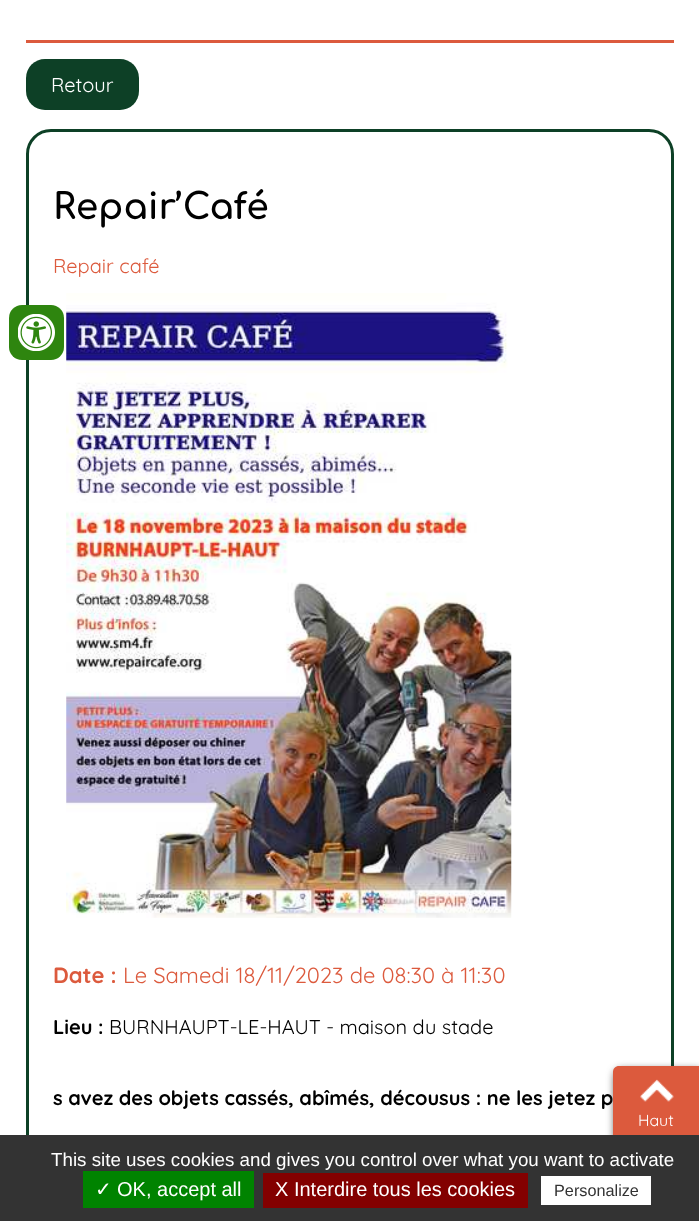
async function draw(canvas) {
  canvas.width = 699;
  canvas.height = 1221;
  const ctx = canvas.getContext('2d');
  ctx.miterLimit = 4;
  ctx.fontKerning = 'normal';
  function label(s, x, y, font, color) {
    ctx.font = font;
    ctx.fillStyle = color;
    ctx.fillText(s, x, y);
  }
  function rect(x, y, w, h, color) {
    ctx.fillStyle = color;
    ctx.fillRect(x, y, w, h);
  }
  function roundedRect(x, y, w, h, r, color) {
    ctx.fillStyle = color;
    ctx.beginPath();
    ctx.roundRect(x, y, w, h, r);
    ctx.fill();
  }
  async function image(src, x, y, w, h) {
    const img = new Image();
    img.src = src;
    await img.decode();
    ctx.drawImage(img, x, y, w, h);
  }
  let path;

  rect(0, 0, 699, 1221, '#fff');
  ctx.beginPath();
  ctx.roundRect(27.5, 130.5, 645, 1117, 23.5);
  ctx.strokeStyle = '#0d4026';
  ctx.lineWidth = 3;
  ctx.stroke();
  roundedRect(9, 305, 55, 55, 13, '#2e850f');
  await image('assets/img1.png', 18, 314, 37, 37);
  rect(26, 40, 648, 3, '#dc5a3d');
  roundedRect(26, 59, 113, 51, 19, '#0d4026');
  label('Retour', 51, 92, '20px Quicksand', '#fff');
  label('Repair’Café', 53, 219, 'bold 36px Comfortaa', '#000');
  label('Repair café', 53, 273, '20px Quicksand', '#dc5a3d');
  await image('assets/img2.png', 66, 293, 446, 625);
  label('Date :', 53, 983, 'bold 22px Quicksand', '#dc5a3d');
  label('Le Samedi 18/11/2023 de 08:30 à 11:30', 123, 983, '22px Quicksand', '#dc5a3d');
  label('Lieu :', 53, 1034, 'bold 20px Quicksand', '#000');
  label('BURNHAUPT-LE-HAUT - maison du stade', 109, 1034, '20px Quicksand', '#000');
  label('s avez des objets cassés, abîmés, décousus : ne les jetez p', 53, 1105, 'bold 20px Quicksand', '#000');
  ctx.fillStyle = '#323232';
  ctx.filter = 'blur(4.5px)';
  ctx.beginPath();
  ctx.roundRect(615, 1070, 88, 86, 6);
  ctx.fill();
  ctx.filter = 'none';
  ctx.fillStyle = '#dc5a3d';
  path = new Path2D('M619 1066H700V1153H619C615.5 1153 613 1150.5 613 1147V1072C613 1068.5 615.5 1066 619 1066Z');
  ctx.fill(path);
  await image('assets/img3.png', 640, 1079, 34, 23);
  label('Haut', 638, 1126, '16px Quicksand', '#fff');
  rect(0, 1135, 699, 86, '#333');
  label('This site uses cookies and gives you control over what you want to activate', 51, 1166, '18.75px Liberation Sans', '#fff');
  rect(83, 1171, 171, 37, '#008300');
  label('✓', 95, 1196, '20px DejaVu Sans', '#fff');
  label('OK, accept all', 117, 1196, '20px Liberation Sans', '#fff');
  rect(263, 1173, 265, 35, '#830000');
  label('X Interdire tous les cookies', 275, 1196, '20px Liberation Sans', '#fff');
  rect(541, 1176, 110, 29, '#fff');
  label('Personalize', 554, 1196, '16.25px Liberation Sans', '#333');
}

draw(document.querySelector('canvas'));
